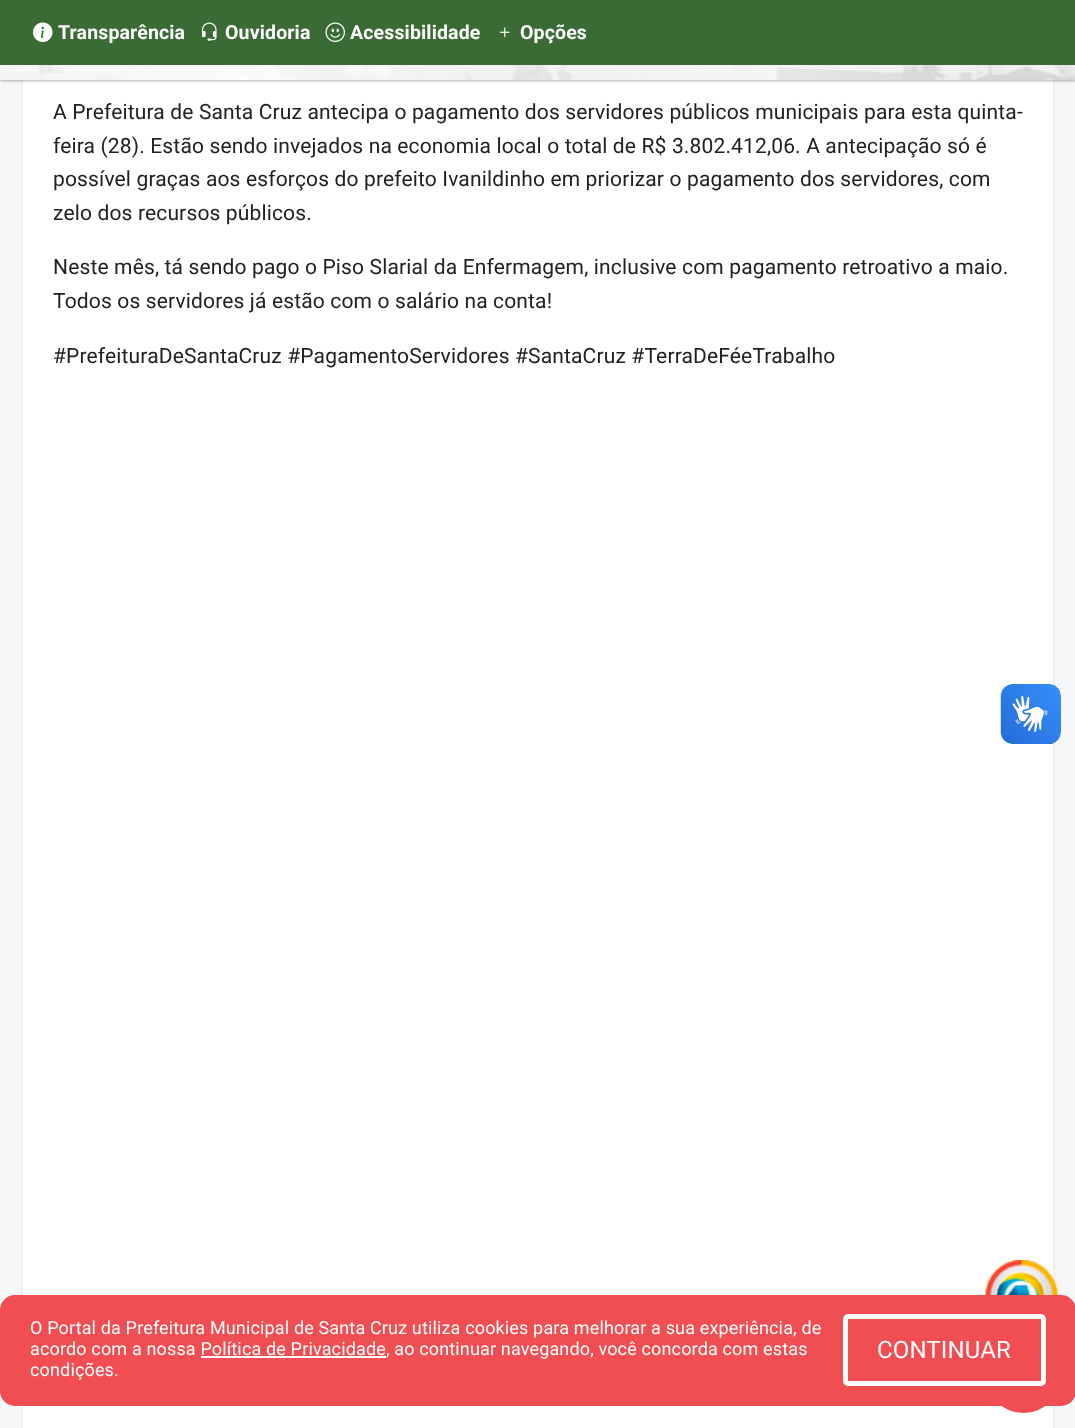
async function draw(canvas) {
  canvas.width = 1075;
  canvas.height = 1428;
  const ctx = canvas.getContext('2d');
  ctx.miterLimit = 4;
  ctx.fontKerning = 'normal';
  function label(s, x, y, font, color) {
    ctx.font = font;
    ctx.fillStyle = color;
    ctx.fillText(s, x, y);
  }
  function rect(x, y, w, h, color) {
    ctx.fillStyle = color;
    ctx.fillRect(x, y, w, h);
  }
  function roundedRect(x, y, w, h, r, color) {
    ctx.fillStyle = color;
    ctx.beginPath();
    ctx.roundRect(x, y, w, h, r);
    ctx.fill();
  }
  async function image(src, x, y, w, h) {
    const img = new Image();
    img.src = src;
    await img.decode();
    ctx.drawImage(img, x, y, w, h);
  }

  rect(0, 0, 1075, 1428, '#f6f7f8');
  ctx.fillStyle = '#03004717';
  ctx.filter = 'blur(2px)';
  ctx.beginPath();
  ctx.rect(23, -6, 1030, 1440);
  ctx.fill();
  ctx.filter = 'none';
  rect(23, 80, 1030, 1348, '#fff');
  ctx.fillStyle = '#0000004d';
  ctx.filter = 'blur(1.5px)';
  ctx.beginPath();
  ctx.rect(0, 2, 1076, 79);
  ctx.fill();
  ctx.filter = 'none';
  await image('assets/img1.png', 0, 65, 1075, 15);
  rect(0, 0, 1075, 65, '#3b6b35');
  await image('assets/img2.png', 33, 22, 20, 20);
  ctx.letterSpacing = '0.15px';
  label('Transparência', 58, 39, 'bold 19.5px Roboto', '#fff');
  await image('assets/img3.png', 201, 22, 16, 19);
  label('Ouvidoria', 225, 39, 'bold 19.5px Roboto', '#fff');
  await image('assets/img4.png', 325, 22, 20, 20);
  label('Acessibilidade', 350, 39, 'bold 19.5px Roboto', '#fff');
  await image('assets/img5.png', 499, 27, 11, 11);
  label('Opções', 520, 39, 'bold 19.5px Roboto', '#fff');
  label('A Prefeitura de Santa Cruz antecipa o pagamento dos servidores públicos municipais para esta quinta-', 53, 119, '21px Roboto', '#212121');
  label('feira (28). Estão sendo invejados na economia local o total de R$ 3.802.412,06. A antecipação só é', 53, 153, '21px Roboto', '#212121');
  label('possível graças aos esforços do prefeito Ivanildinho em priorizar o pagamento dos servidores, com', 53, 186, '21px Roboto', '#212121');
  label('zelo dos recursos públicos.', 53, 220, '21px Roboto', '#212121');
  label('Neste mês, tá sendo pago o Piso Slarial da Enfermagem, inclusive com pagamento retroativo a maio.', 53, 274, '21px Roboto', '#212121');
  label('Todos os servidores já estão com o salário na conta!', 53, 308, '21px Roboto', '#212121');
  label('#PrefeituraDeSantaCruz #PagamentoServidores #SantaCruz #TerraDeFéeTrabalho', 53, 363, '21px Roboto', '#212121');
  await image('assets/img6.png', 1000, 684, 61, 60);
  await image('assets/img7.png', 1001, 684, 60, 60);
  await image('assets/img8.png', 985, 1260, 73, 35);
  ctx.fillStyle = '#f04e52';
  ctx.beginPath();
  ctx.arc(1023.5, 1375.5, 37.5, 0, 2 * Math.PI);
  ctx.fill();
  roundedRect(0, 1295, 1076, 111, 15, '#f04e52');
  label('O Portal da Prefeitura Municipal de Santa Cruz utiliza cookies para melhorar a sua experiência, de', 30, 1334, '18px Roboto', '#fff');
  label('acordo com a nossa Política de Privacidade, ao continuar navegando, você concorda com estas', 30, 1355, '18px Roboto', '#fff');
  rect(201, 1356, 185, 2, '#fff');
  label('condições.', 30, 1376, '18px Roboto', '#fff');
  ctx.beginPath();
  ctx.roundRect(845.5, 1316.5, 198, 67, 2.5);
  ctx.strokeStyle = '#fff';
  ctx.lineWidth = 5;
  ctx.stroke();
  label('CONTINUAR', 877, 1358, '24px Roboto', '#fff');
}

draw(document.querySelector('canvas'));
